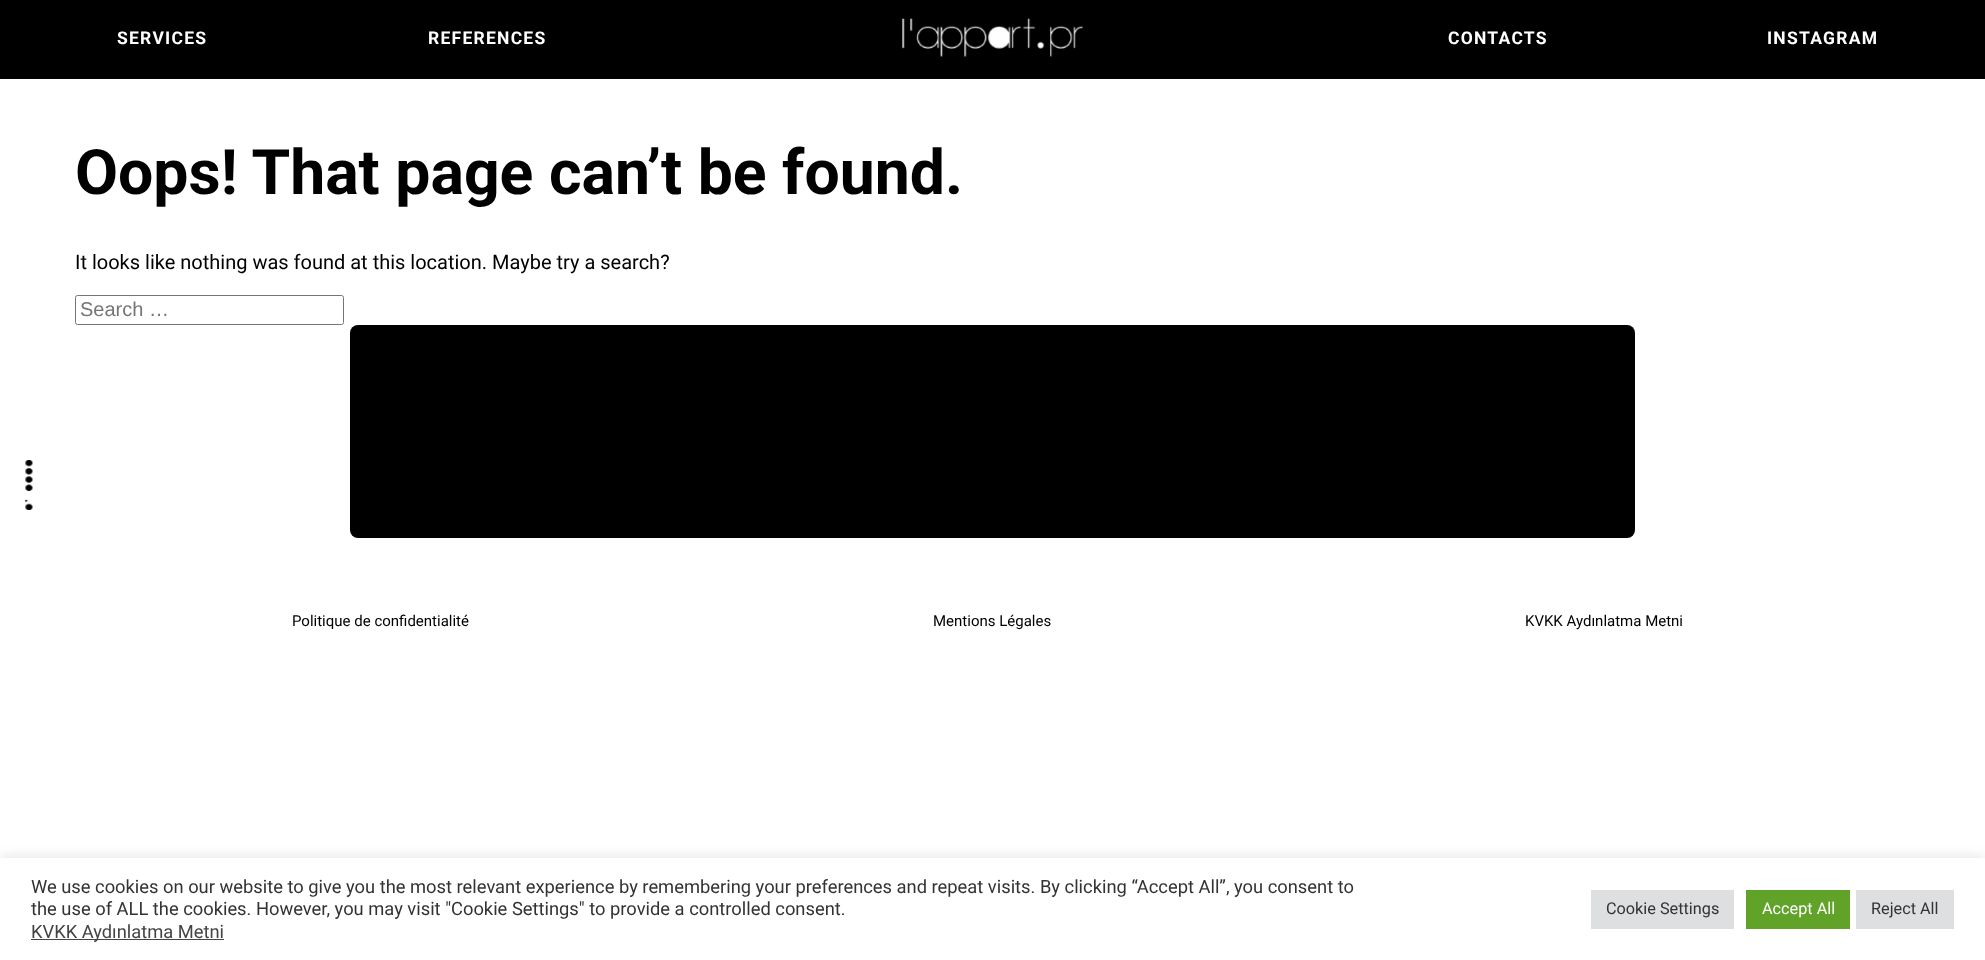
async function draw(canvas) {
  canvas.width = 1985;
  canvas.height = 960;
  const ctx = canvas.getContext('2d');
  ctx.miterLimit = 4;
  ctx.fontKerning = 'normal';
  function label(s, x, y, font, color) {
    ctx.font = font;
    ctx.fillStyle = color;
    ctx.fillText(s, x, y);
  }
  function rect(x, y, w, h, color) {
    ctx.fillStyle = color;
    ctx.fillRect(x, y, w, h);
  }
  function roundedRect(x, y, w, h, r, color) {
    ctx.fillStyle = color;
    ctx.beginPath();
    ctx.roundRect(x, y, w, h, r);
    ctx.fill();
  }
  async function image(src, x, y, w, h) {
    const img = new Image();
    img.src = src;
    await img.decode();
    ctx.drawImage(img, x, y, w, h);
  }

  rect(0, 0, 1985, 960, '#fff');
  rect(0, 0, 1985, 79, '#000');
  ctx.letterSpacing = '1.25px';
  label('SERVICES', 117, 44, 'bold 17.5px Roboto', '#fff');
  label('REFERENCES', 428, 44, 'bold 17.5px Roboto', '#fff');
  await image('assets/img1.png', 902, 18, 182, 39);
  label('CONTACTS', 1448, 44, 'bold 17.5px Roboto', '#fff');
  label('INSTAGRAM', 1767, 44, 'bold 17.5px Roboto', '#fff');
  ctx.letterSpacing = '0px';
  label('Oops! That page can’t be found.', 75, 194, 'bold 62.5px Roboto', '#000');
  label('It looks like nothing was found at this location. Maybe try a search?', 75, 269, '20px Roboto', '#000');
  ctx.beginPath();
  ctx.roundRect(75.5, 295.5, 268, 29, 2);
  ctx.strokeStyle = '#767676';
  ctx.stroke();
  label('Search …', 80, 316, '20px Liberation Sans', '#757575');
  roundedRect(350, 325, 1285, 213, 8, '#000');
  await image('assets/img2.png', 25, 460, 8, 50);
  label('Politique de confidentialité', 292, 626, '15px Roboto', '#000');
  label('Mentions Légales', 933, 626, '15px Roboto', '#000');
  label('KVKK Aydınlatma Metni', 1525, 626, '15px Roboto', '#000');
  ctx.fillStyle = '#acabab4d';
  ctx.filter = 'blur(6px)';
  ctx.beginPath();
  ctx.rect(0, 856, 1985, 103);
  ctx.fill();
  ctx.filter = 'none';
  rect(0, 858, 1985, 102, '#fff');
  label('We use cookies on our website to give you the most relevant experience by remembering your preferences and repeat visits. By clicking “Accept All”, you consent to', 31, 893, '18.33px Roboto', '#333');
  label('the use of ALL the cookies. However, you may visit "Cookie Settings" to provide a controlled consent.', 31, 915, '18.33px Roboto', '#333');
  rect(31, 939, 193, 1, '#444');
  label('KVKK Aydınlatma Metni', 31, 938, '18.33px Roboto', '#444');
  rect(1591, 890, 143, 39, '#dedfe0');
  label('Cookie Settings', 1606, 914, '16.25px Roboto', '#333');
  rect(1746, 890, 104, 39, '#61a229');
  label('Accept All', 1762, 914, '16.25px Roboto', '#fff');
  rect(1856, 890, 98, 39, '#dedfe0');
  label('Reject All', 1871, 914, '16.25px Roboto', '#333');
}

draw(document.querySelector('canvas'));
